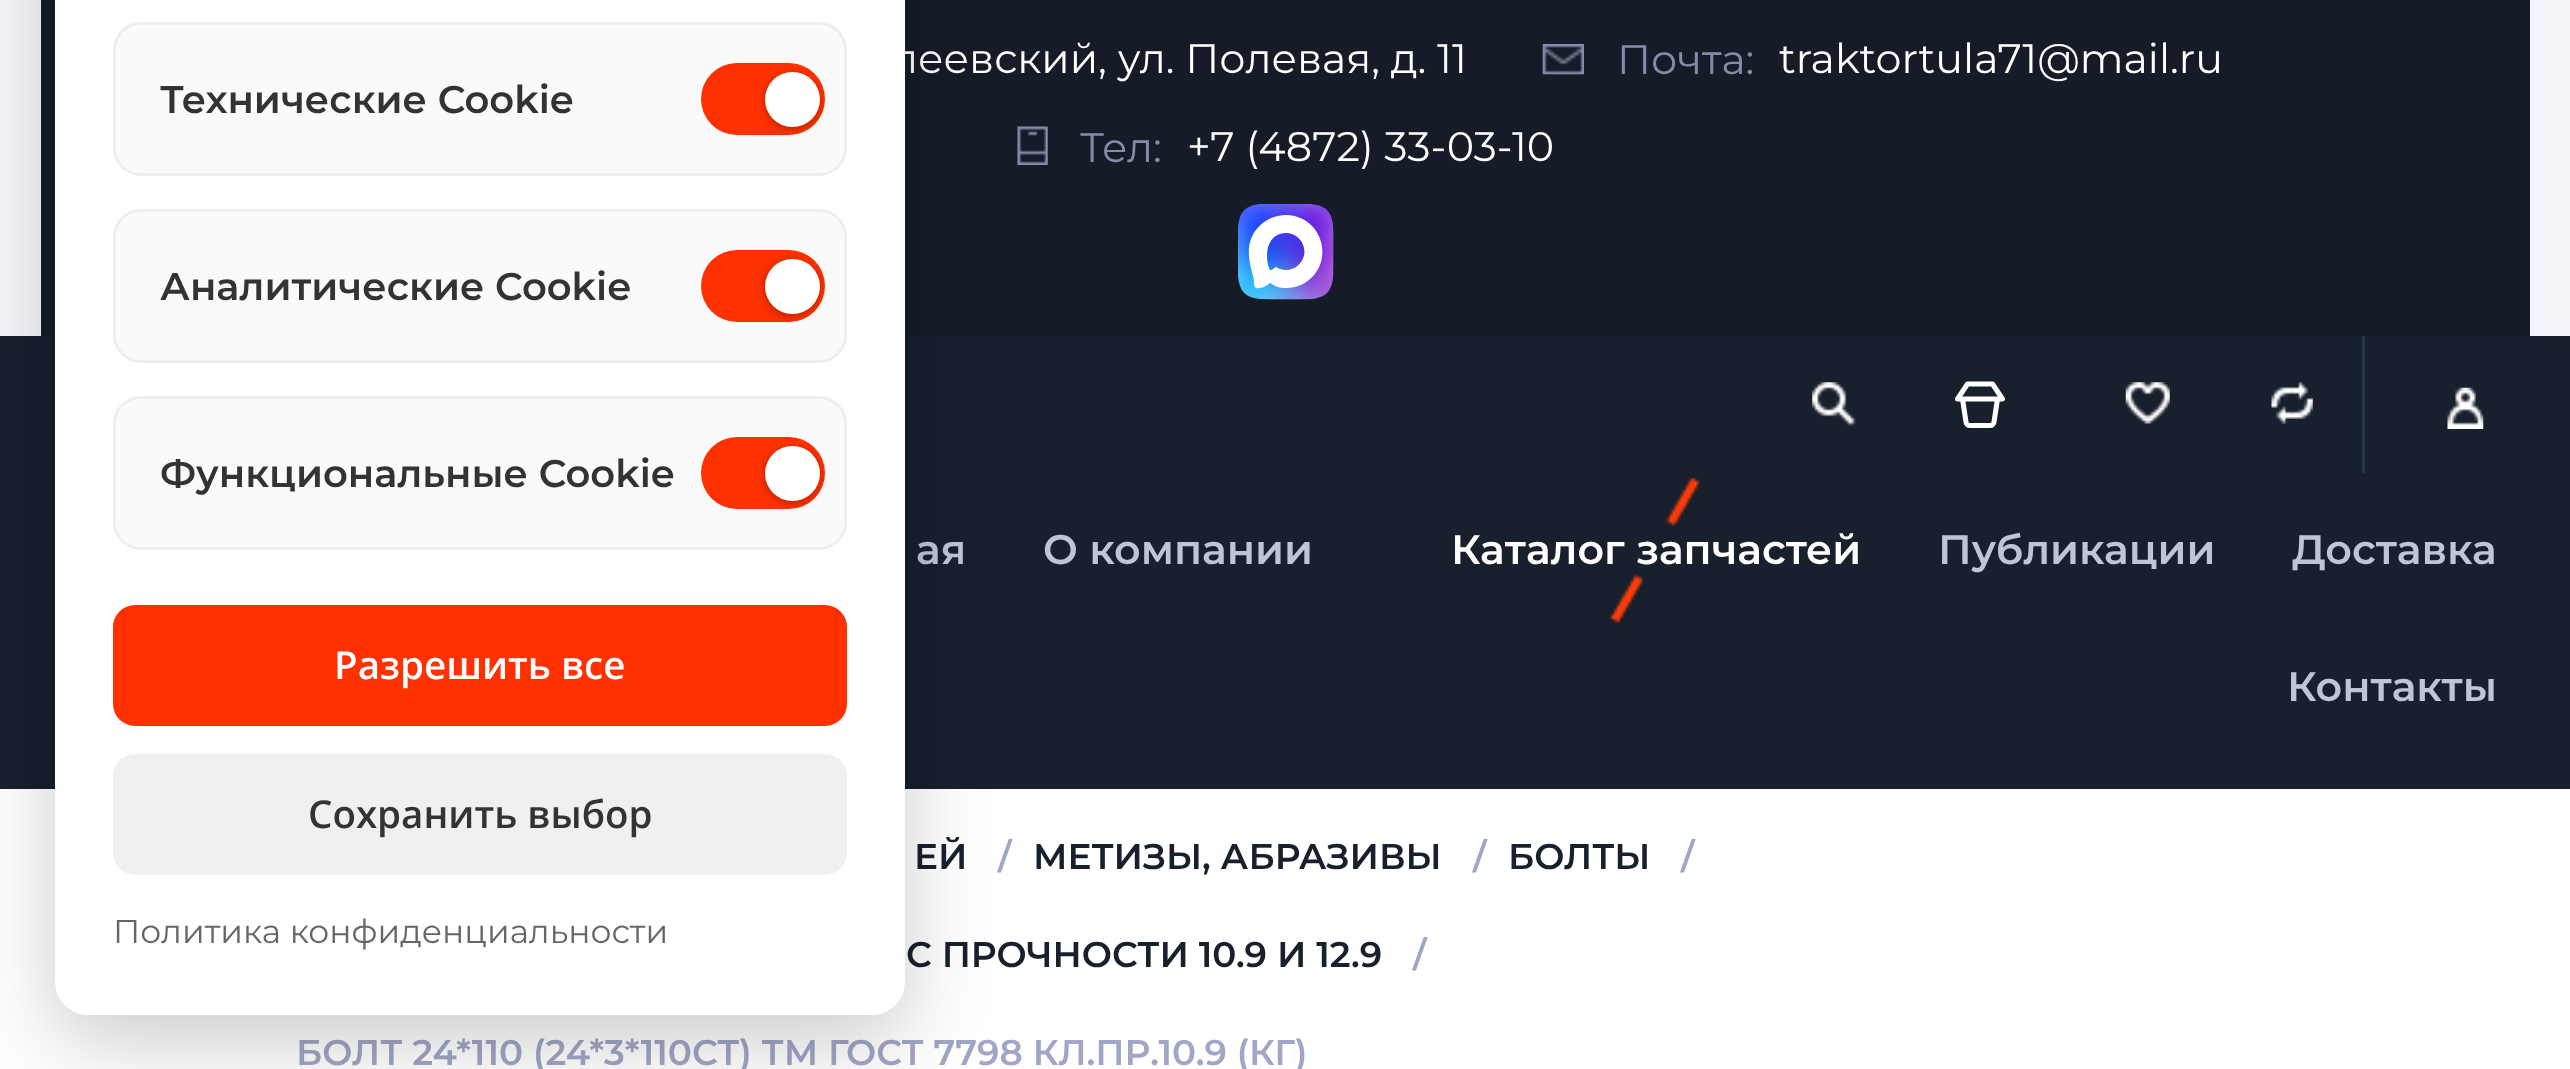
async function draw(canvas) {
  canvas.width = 2570;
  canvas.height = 1069;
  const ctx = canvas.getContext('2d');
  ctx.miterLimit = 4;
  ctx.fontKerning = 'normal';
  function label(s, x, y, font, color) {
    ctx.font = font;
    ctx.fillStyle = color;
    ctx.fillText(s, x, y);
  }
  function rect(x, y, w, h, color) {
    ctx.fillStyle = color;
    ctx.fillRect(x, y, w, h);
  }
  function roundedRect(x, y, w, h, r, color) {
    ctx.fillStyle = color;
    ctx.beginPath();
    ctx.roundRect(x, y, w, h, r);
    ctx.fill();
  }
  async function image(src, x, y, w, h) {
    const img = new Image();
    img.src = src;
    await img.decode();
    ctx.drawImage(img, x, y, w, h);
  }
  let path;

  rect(0, 0, 2570, 1069, '#f4f5fb');
  rect(41, 0, 2489, 336, '#151c28');
  label('леевский, ул. Полевая, д. 11', 892, 73, '41.25px Montserrat', '#fff');
  await image('assets/img1.png', 1542, 44, 42, 31);
  label('Почта:', 1617, 74, '41.25px Montserrat', '#868ca7');
  label('traktortula71@mail.ru', 1779, 73, '41.25px Montserrat', '#fff');
  await image('assets/img2.png', 1017, 126, 31, 39);
  label('Тел:', 1080, 162, '41.25px Montserrat', '#868ca7');
  label('+7 (4872) 33-03-10', 1187, 161, '41.25px Montserrat', '#fff');
  await image('assets/img3.png', 1238, 204, 96, 96);
  rect(0, 336, 2570, 453, '#18202e');
  await image('assets/img4.png', 1812, 382, 44, 45);
  path = new Path2D('M1967.5 384H1992.5L2002.5 399H1957.5ZM1962.5 399L1966 422C1966 424 1968 425.5 1970 425.5H1990C1992 425.5 1994 424 1994 422L1997.5 399');
  ctx.strokeStyle = '#fff';
  ctx.lineWidth = 5;
  ctx.lineCap = 'round';
  ctx.lineJoin = 'round';
  ctx.stroke(path);
  await image('assets/img5.png', 2125, 382, 45, 42);
  await image('assets/img6.png', 2271, 382, 42, 42);
  rect(2362, 336, 3, 137, '#263349');
  await image('assets/img7.png', 2447, 387, 37, 42);
  label('ая', 916, 564, '600 41.25px Montserrat', '#c0c4d7');
  label('О компании', 1043, 564, '600 41.25px Montserrat', '#c0c4d7');
  label('Каталог запчастей', 1451, 564, '600 41.25px Montserrat', '#fff');
  await image('assets/img8.png', 1609, 478, 91, 146);
  label('Публикации', 1938, 564, '600 41.25px Montserrat', '#c0c4d7');
  label('Доставка', 2292, 564, '600 41.25px Montserrat', '#c0c4d7');
  label('Контакты', 2287, 701, '600 41.25px Montserrat', '#c0c4d7');
  rect(0, 789, 2570, 280, '#fff');
  label('ЕЙ', 914, 869, '600 35.75px Montserrat', '#18202e');
  label('/', 998, 869, '600 35.75px Montserrat', '#a0a6c5');
  label('МЕТИЗЫ, АБРАЗИВЫ', 1033, 869, '600 35.75px Montserrat', '#18202e');
  label('/', 1473, 869, '600 35.75px Montserrat', '#a0a6c5');
  label('БОЛТЫ', 1508, 869, '600 35.75px Montserrat', '#18202e');
  label('/', 1681, 869, '600 35.75px Montserrat', '#a0a6c5');
  label('С ПРОЧНОСТИ 10.9 И 12.9', 906, 967, '600 35.75px Montserrat', '#18202e');
  label('/', 1413, 967, '600 35.75px Montserrat', '#a0a6c5');
  label('БОЛТ 24*110 (24*3*110СТ) ТМ ГОСТ 7798 КЛ.ПР.10.9 (КГ)', 296, 1065, '600 35.75px Montserrat', '#a0a6c5');
  ctx.fillStyle = '#00000033';
  ctx.filter = 'blur(41px)';
  ctx.beginPath();
  ctx.roundRect(55, -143, 850, 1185, 33);
  ctx.fill();
  ctx.filter = 'none';
  roundedRect(55, -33, 850, 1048, 33, '#fff');
  ctx.beginPath();
  ctx.roundRect(114.5, 23.5, 731, 151, 26.5);
  ctx.strokeStyle = '#eee';
  ctx.lineWidth = 3;
  ctx.lineJoin = 'miter';
  ctx.stroke();
  roundedRect(116, 25, 728, 148, 25, '#fafafa');
  label('Технические Cookie', 160, 113, '600 38.5px Montserrat', '#333');
  roundedRect(701, 63, 124, 72, 36, '#ff3100');
  ctx.fillStyle = '#0000004d';
  ctx.filter = 'blur(4px)';
  ctx.beginPath();
  ctx.roundRect(765, 74, 55, 55, 27.5);
  ctx.fill();
  ctx.filter = 'none';
  ctx.fillStyle = '#fff';
  ctx.beginPath();
  ctx.arc(792.5, 99.5, 27.5, 0, 2 * Math.PI);
  ctx.fill();
  ctx.beginPath();
  ctx.roundRect(114.5, 210.5, 731, 151, 26.5);
  ctx.stroke();
  roundedRect(116, 212, 728, 148, 25, '#fafafa');
  label('Аналитические Cookie', 160, 300, '600 38.5px Montserrat', '#333');
  roundedRect(701, 250, 124, 72, 36, '#ff3100');
  ctx.fillStyle = '#0000004d';
  ctx.filter = 'blur(4px)';
  ctx.beginPath();
  ctx.roundRect(765, 261, 55, 55, 27.5);
  ctx.fill();
  ctx.filter = 'none';
  ctx.fillStyle = '#fff';
  ctx.beginPath();
  ctx.arc(792.5, 286.5, 27.5, 0, 2 * Math.PI);
  ctx.fill();
  ctx.beginPath();
  ctx.roundRect(114.5, 397.5, 731, 151, 26.5);
  ctx.stroke();
  roundedRect(116, 399, 728, 148, 25, '#fafafa');
  label('Функциональные Cookie', 160, 487, '600 38.5px Montserrat', '#333');
  roundedRect(701, 437, 124, 72, 36, '#ff3100');
  ctx.fillStyle = '#0000004d';
  ctx.filter = 'blur(4px)';
  ctx.beginPath();
  ctx.roundRect(765, 448, 55, 55, 27.5);
  ctx.fill();
  ctx.filter = 'none';
  ctx.fillStyle = '#fff';
  ctx.beginPath();
  ctx.arc(792.5, 473.5, 27.5, 0, 2 * Math.PI);
  ctx.fill();
  roundedRect(113, 605, 734, 121, 22, '#ff3100');
  label('Разрешить все', 334, 679, '600 38.5px Open Sans', '#fff');
  roundedRect(113, 754, 734, 121, 22, '#f0f0f0');
  label('Сохранить выбор', 308, 828, '600 38.5px Open Sans', '#333');
  label('Политика конфиденциальности', 113, 943, '33px Montserrat', '#666');
}

draw(document.querySelector('canvas'));
